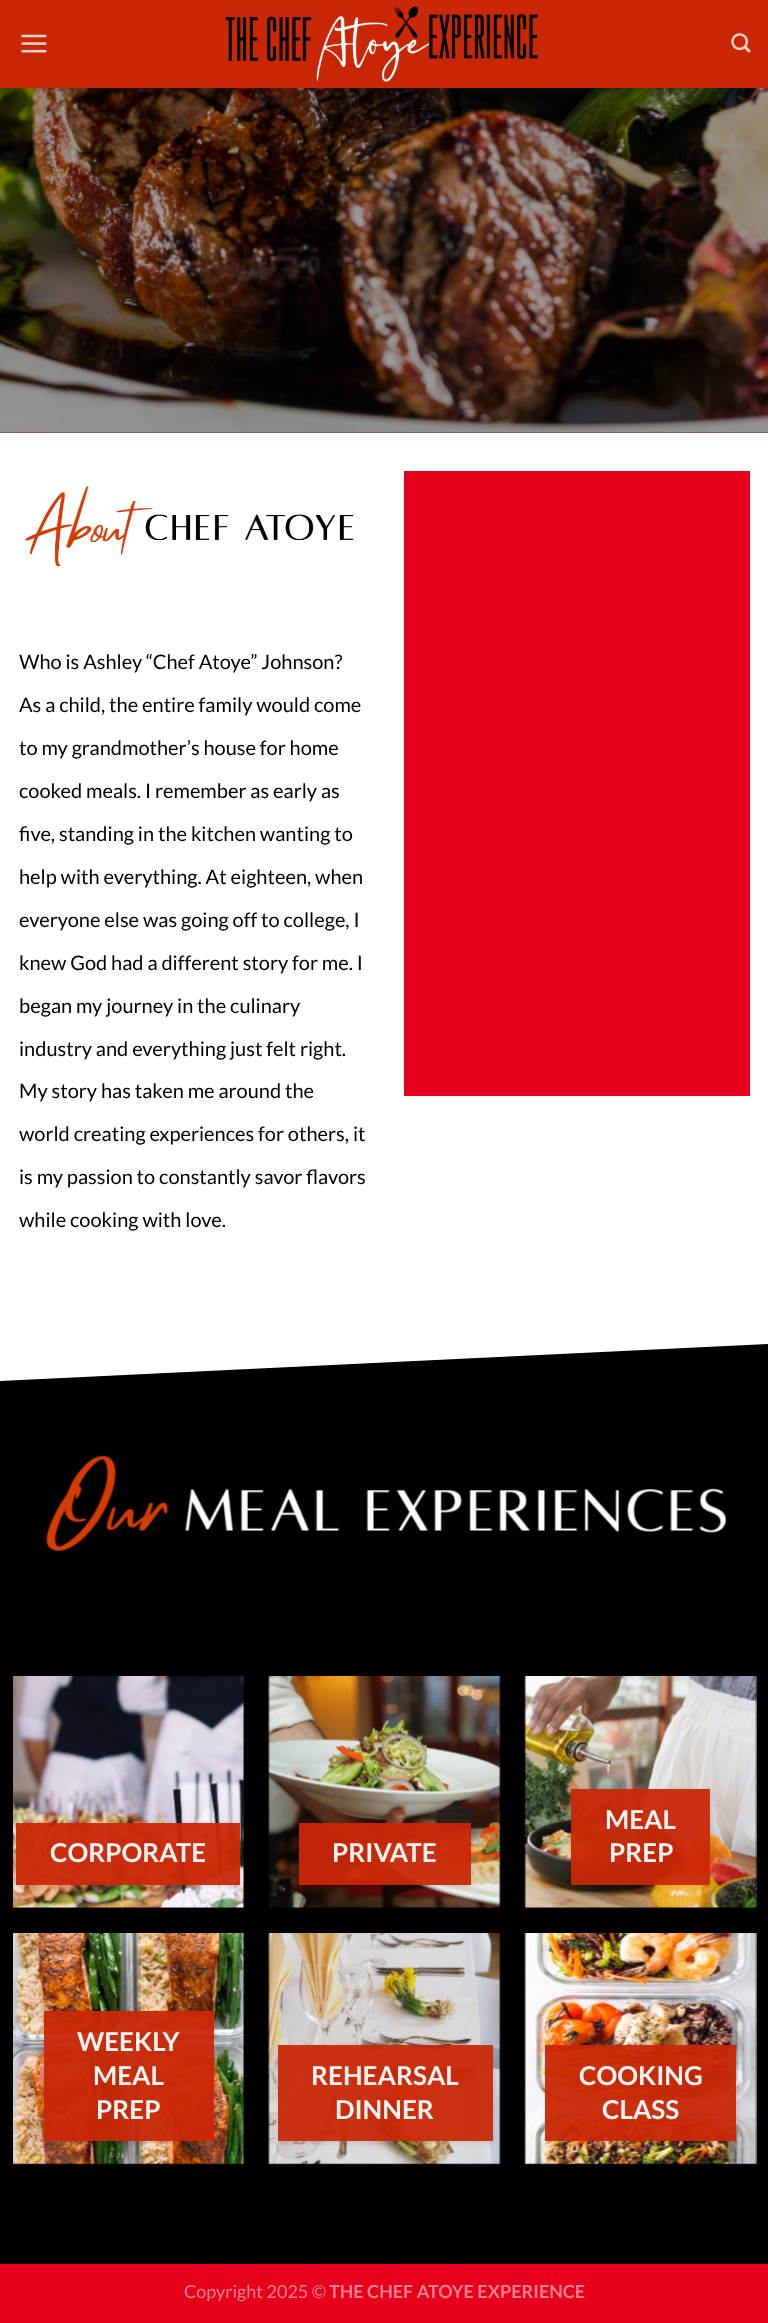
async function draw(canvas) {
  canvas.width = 768;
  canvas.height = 2323;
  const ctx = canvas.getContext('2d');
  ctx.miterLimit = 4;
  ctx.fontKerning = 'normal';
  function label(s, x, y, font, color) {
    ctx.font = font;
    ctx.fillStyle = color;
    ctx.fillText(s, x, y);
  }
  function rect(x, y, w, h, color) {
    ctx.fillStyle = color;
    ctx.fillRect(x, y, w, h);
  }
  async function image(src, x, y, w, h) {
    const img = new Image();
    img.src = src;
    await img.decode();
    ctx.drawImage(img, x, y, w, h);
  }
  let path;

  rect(0, 0, 768, 2323, '#fff');
  rect(0, 432, 768, 1, '#980012');
  await image('assets/img4.png', 0, 88, 768, 345);
  ctx.fillStyle = '#00000026';
  ctx.filter = 'blur(6px)';
  ctx.beginPath();
  ctx.rect(1, 1, 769, 88);
  ctx.fill();
  ctx.filter = 'none';
  rect(0, 0, 768, 88, '#ca2707');
  await image('assets/img1.png', 21, 34, 26, 19);
  await image('assets/img2.png', 225, 6, 313, 76);
  await image('assets/img3.png', 731, 33, 20, 20);
  await image('assets/img5.png', 25, 486, 329, 81);
  label('Who is Ashley “Chef Atoye” Johnson?', 19, 669, '20px Lato', '#000');
  label('As a child, the entire family would come', 19, 712, '20px Lato', '#000');
  label('to my grandmother’s house for home', 19, 755, '20px Lato', '#000');
  label('cooked meals. I remember as early as', 19, 798, '20px Lato', '#000');
  label('five, standing in the kitchen wanting to', 19, 841, '20px Lato', '#000');
  label('help with everything. At eighteen, when', 19, 884, '20px Lato', '#000');
  label('everyone else was going off to college, I', 19, 927, '20px Lato', '#000');
  label('knew God had a different story for me. I', 19, 970, '20px Lato', '#000');
  label('began my journey in the culinary', 19, 1013, '20px Lato', '#000');
  label('industry and everything just felt right.', 19, 1056, '20px Lato', '#000');
  label('My story has taken me around the', 19, 1098, '20px Lato', '#000');
  label('world creating experiences for others, it', 19, 1141, '20px Lato', '#000');
  label('is my passion to constantly savor flavors', 19, 1184, '20px Lato', '#000');
  label('while cooking with love.', 19, 1227, '20px Lato', '#000');
  rect(404, 471, 346, 625, '#e6001c');
  ctx.fillStyle = '#000';
  path = new Path2D('M0 1381V2264H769V1344H768Z');
  ctx.fill(path);
  await image('assets/img6.png', 46, 1455, 681, 97);
  await image('assets/img7.png', 13, 1676, 232, 232);
  ctx.save();
  path = new Path2D('M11 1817H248V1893H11ZM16 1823H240V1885H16Z');
  ctx.clip(path, 'evenodd');
  ctx.fillStyle = '#0000001a';
  ctx.filter = 'blur(2px)';
  ctx.beginPath();
  ctx.rect(18, 1824, 223, 62);
  ctx.fill();
  ctx.filter = 'none';
  ctx.restore();
  rect(16, 1823, 224, 62, '#ca2707f2');
  label('CORPORATE', 50, 1862, 'bold 26px Lato', '#fcf4f3');
  await image('assets/img8.png', 268, 1676, 233, 232);
  ctx.save();
  path = new Path2D('M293 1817H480V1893H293ZM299 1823H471V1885H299Z');
  ctx.clip(path, 'evenodd');
  ctx.fillStyle = '#0000001a';
  ctx.filter = 'blur(2px)';
  ctx.beginPath();
  ctx.rect(300, 1824, 173, 62);
  ctx.fill();
  ctx.filter = 'none';
  ctx.restore();
  rect(299, 1823, 172, 62, '#ca2707f2');
  label('PRIVATE', 332, 1862, 'bold 26px Lato', '#fcf4f3');
  await image('assets/img9.png', 524, 1676, 233, 232);
  ctx.save();
  path = new Path2D('M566 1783H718V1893H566ZM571 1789H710V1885H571Z');
  ctx.clip(path, 'evenodd');
  ctx.fillStyle = '#0000001a';
  ctx.filter = 'blur(2px)';
  ctx.beginPath();
  ctx.rect(573, 1790, 138, 96);
  ctx.fill();
  ctx.filter = 'none';
  ctx.restore();
  rect(571, 1789, 139, 96, '#ca2707f2');
  label('MEAL', 605, 1829, 'bold 26px Lato', '#fcf4f3');
  label('PREP', 609, 1862, 'bold 26px Lato', '#fcf4f3');
  await image('assets/img10.png', 13, 1933, 232, 232);
  ctx.save();
  path = new Path2D('M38 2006H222V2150H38ZM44 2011H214V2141H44Z');
  ctx.clip(path, 'evenodd');
  ctx.fillStyle = '#0000001a';
  ctx.filter = 'blur(2px)';
  ctx.beginPath();
  ctx.rect(45, 2013, 170, 130);
  ctx.fill();
  ctx.filter = 'none';
  ctx.restore();
  rect(44, 2011, 170, 130, '#ca2707f2');
  label('WEEKLY', 77, 2051, 'bold 26px Lato', '#fcf4f3');
  label('MEAL', 93, 2085, 'bold 26px Lato', '#fcf4f3');
  label('PREP', 96, 2119, 'bold 26px Lato', '#fcf4f3');
  await image('assets/img11.png', 268, 1933, 233, 232);
  ctx.save();
  path = new Path2D('M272 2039H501V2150H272ZM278 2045H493V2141H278Z');
  ctx.clip(path, 'evenodd');
  ctx.fillStyle = '#0000001a';
  ctx.filter = 'blur(2px)';
  ctx.beginPath();
  ctx.rect(279, 2046, 215, 97);
  ctx.fill();
  ctx.filter = 'none';
  ctx.restore();
  rect(278, 2045, 215, 96, '#ca2707f2');
  label('REHEARSAL', 311, 2085, 'bold 26px Lato', '#fcf4f3');
  label('DINNER', 335, 2119, 'bold 26px Lato', '#fcf4f3');
  await image('assets/img12.png', 524, 1933, 233, 232);
  ctx.save();
  path = new Path2D('M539 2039H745V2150H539ZM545 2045H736V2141H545Z');
  ctx.clip(path, 'evenodd');
  ctx.fillStyle = '#0000001a';
  ctx.filter = 'blur(2px)';
  ctx.beginPath();
  ctx.rect(546, 2046, 192, 97);
  ctx.fill();
  ctx.filter = 'none';
  ctx.restore();
  rect(545, 2045, 191, 96, '#ca2707f2');
  label('COOKING', 579, 2085, 'bold 26px Lato', '#fcf4f3');
  label('CLASS', 602, 2119, 'bold 26px Lato', '#fcf4f3');
  rect(0, 2264, 768, 59, '#e6001c');
  label('Copyright 2025 ©', 184, 2298, '18px Lato', '#f3808e');
  label('THE CHEF ATOYE EXPERIENCE', 329, 2298, 'bold 18px Lato', '#f3808e');
}

draw(document.querySelector('canvas'));
